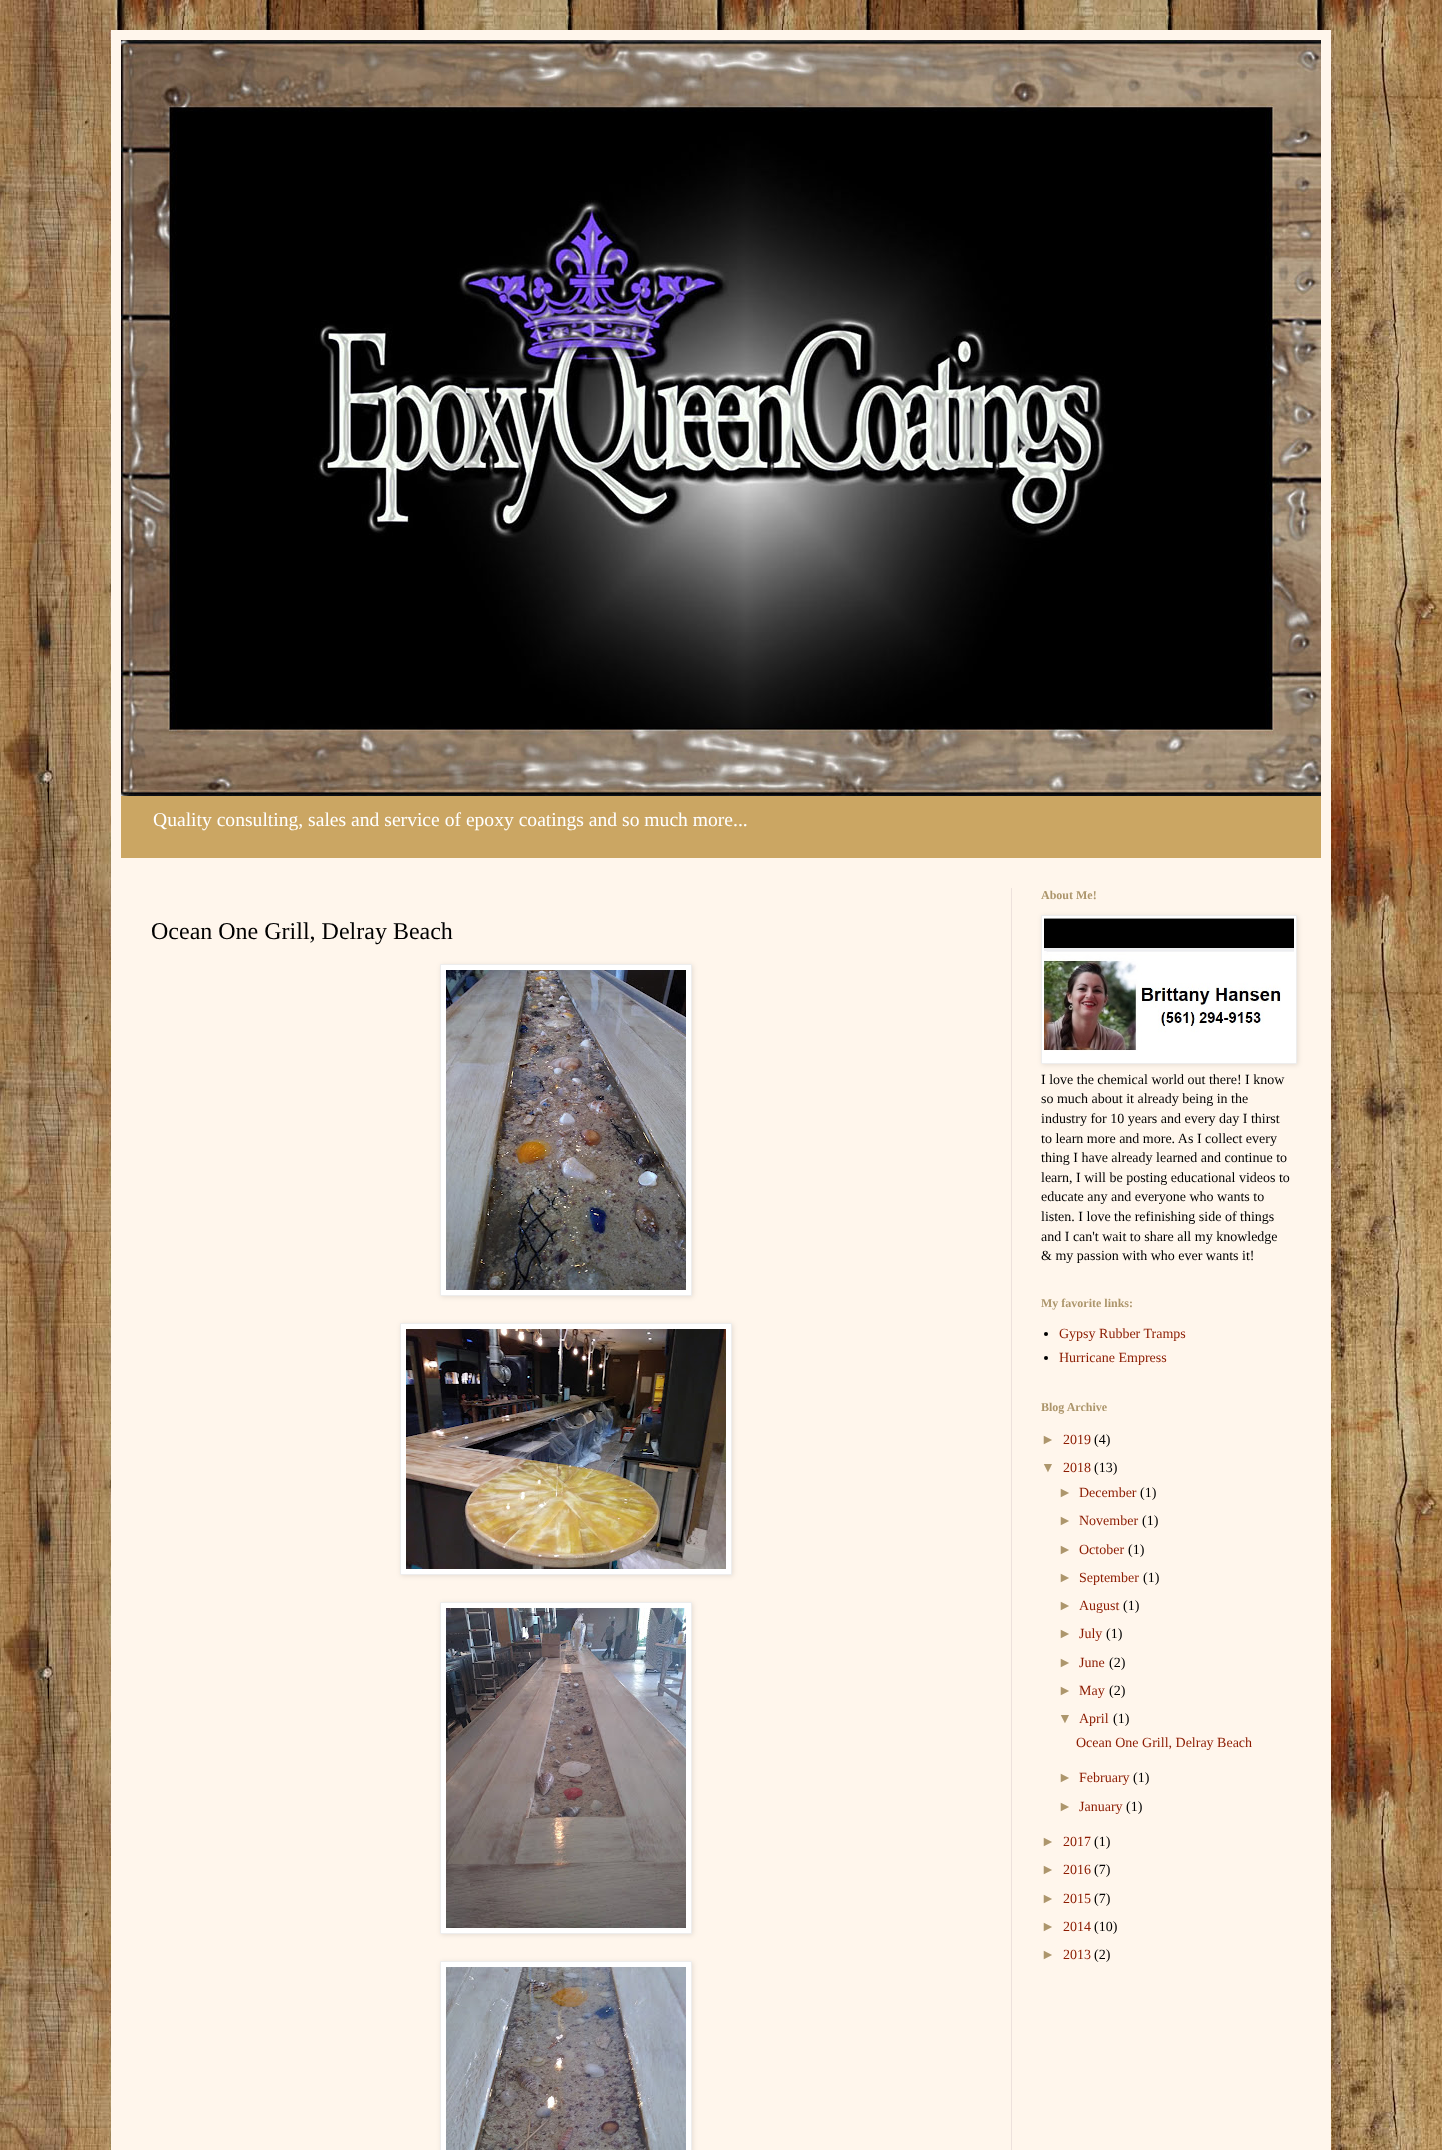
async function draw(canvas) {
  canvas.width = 1442;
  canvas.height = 2150;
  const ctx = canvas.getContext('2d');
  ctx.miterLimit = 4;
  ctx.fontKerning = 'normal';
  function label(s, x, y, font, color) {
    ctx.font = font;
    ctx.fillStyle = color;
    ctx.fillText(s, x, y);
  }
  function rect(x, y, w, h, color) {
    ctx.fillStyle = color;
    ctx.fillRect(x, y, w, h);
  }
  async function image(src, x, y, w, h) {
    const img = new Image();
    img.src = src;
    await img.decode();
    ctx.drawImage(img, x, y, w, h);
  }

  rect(0, 0, 1442, 2150, '#fff');
  await image('assets/img1.png', 0, 0, 1442, 2150);
  ctx.fillStyle = '#00000026';
  ctx.filter = 'blur(20px)';
  ctx.beginPath();
  ctx.rect(111, 30, 1220, 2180);
  ctx.fill();
  ctx.filter = 'none';
  rect(111, 30, 1220, 2120, '#fff6ec');
  rect(121, 796, 1200, 62, '#cba663');
  await image('assets/img2.png', 121, 40, 1200, 756);
  label('Quality consulting, sales and service of epoxy coatings and so much more...', 153, 826, '19.6px Liberation Serif', '#fff');
  rect(1011, 888, 1, 1262, '#ede1dc');
  label('Ocean One Grill, Delray Beach', 151, 939, '24px Liberation Serif', '#000');
  ctx.fillStyle = '#0000001a';
  ctx.filter = 'blur(2.5px)';
  ctx.beginPath();
  ctx.rect(441, 965, 252, 332);
  ctx.fill();
  ctx.filter = 'none';
  ctx.fillStyle = '#fff';
  ctx.beginPath();
  ctx.rect(440.5, 964.5, 251, 331);
  ctx.fill();
  ctx.strokeStyle = '#ededed';
  ctx.stroke();
  await image('assets/img3.png', 446, 970, 240, 320);
  ctx.fillStyle = '#0000001a';
  ctx.filter = 'blur(2.5px)';
  ctx.beginPath();
  ctx.rect(401, 1324, 332, 252);
  ctx.fill();
  ctx.filter = 'none';
  ctx.fillStyle = '#fff';
  ctx.beginPath();
  ctx.rect(400.5, 1323.5, 331, 251);
  ctx.fill();
  ctx.stroke();
  await image('assets/img4.png', 406, 1329, 320, 240);
  ctx.fillStyle = '#0000001a';
  ctx.filter = 'blur(2.5px)';
  ctx.beginPath();
  ctx.rect(441, 1603, 252, 332);
  ctx.fill();
  ctx.filter = 'none';
  ctx.fillStyle = '#fff';
  ctx.beginPath();
  ctx.rect(440.5, 1602.5, 251, 331);
  ctx.fill();
  ctx.stroke();
  await image('assets/img5.png', 446, 1608, 240, 320);
  ctx.fillStyle = '#0000001a';
  ctx.filter = 'blur(2.5px)';
  ctx.beginPath();
  ctx.rect(441, 1962, 252, 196);
  ctx.fill();
  ctx.filter = 'none';
  ctx.fillStyle = '#fff';
  ctx.beginPath();
  ctx.rect(440.5, 1961.5, 251, 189);
  ctx.fill();
  ctx.stroke();
  await image('assets/img6.png', 446, 1967, 240, 183);
  label('About Me!', 1041, 899, 'bold 12px Liberation Serif', '#ad966c');
  ctx.fillStyle = '#0000001a';
  ctx.filter = 'blur(2.5px)';
  ctx.beginPath();
  ctx.rect(1042, 916, 256, 149);
  ctx.fill();
  ctx.filter = 'none';
  ctx.fillStyle = '#fff';
  ctx.beginPath();
  ctx.rect(1041.5, 915.5, 255, 148);
  ctx.fill();
  ctx.stroke();
  await image('assets/img7.png', 1044, 918, 250, 133);
  label('I love the chemical world out there! I know', 1041, 1084, '14px Liberation Serif', '#000');
  label('so much about it already being in the', 1041, 1103, '14px Liberation Serif', '#000');
  label('industry for 10 years and every day I thirst', 1041, 1123, '14px Liberation Serif', '#000');
  label('to learn more and more. As I collect every', 1041, 1143, '14px Liberation Serif', '#000');
  label('thing I have already learned and continue to', 1041, 1162, '14px Liberation Serif', '#000');
  label('learn, I will be posting educational videos to', 1041, 1182, '14px Liberation Serif', '#000');
  label('educate any and everyone who wants to', 1041, 1201, '14px Liberation Serif', '#000');
  label('listen. I love the refinishing side of things', 1041, 1221, '14px Liberation Serif', '#000');
  label('and I can\'t wait to share all my knowledge', 1041, 1241, '14px Liberation Serif', '#000');
  label('& my passion with who ever wants it!', 1041, 1260, '14px Liberation Serif', '#000');
  label('My favorite links:', 1041, 1307, 'bold 12px Liberation Serif', '#ad966c');
  ctx.fillStyle = '#000';
  ctx.beginPath();
  ctx.arc(1046, 1334, 2, 0, 2 * Math.PI);
  ctx.fill();
  label('Gypsy Rubber Tramps', 1059, 1338, '14px Liberation Serif', '#8c1b00');
  ctx.fillStyle = '#000';
  ctx.beginPath();
  ctx.arc(1046, 1358, 2, 0, 2 * Math.PI);
  ctx.fill();
  label('Hurricane Empress', 1059, 1362, '14px Liberation Serif', '#8c1b00');
  label('Blog Archive', 1041, 1411, 'bold 12px Liberation Serif', '#ad966c');
  label('►', 1041, 1444, '14px Liberation Sans', '#ad966c');
  label('2019', 1063, 1444, '14px Liberation Serif', '#8c1b00');
  label('(4)', 1094, 1444, '14px Liberation Serif', '#000');
  label('▼', 1041, 1472, '14px Liberation Sans', '#ad966c');
  label('2018', 1063, 1472, '14px Liberation Serif', '#8c1b00');
  label('(13)', 1094, 1472, '14px Liberation Serif', '#000');
  label('►', 1058, 1497, '14px Liberation Sans', '#ad966c');
  label('December', 1079, 1497, '14px Liberation Serif', '#8c1b00');
  label('(1)', 1140, 1497, '14px Liberation Serif', '#000');
  label('►', 1058, 1525, '14px Liberation Sans', '#ad966c');
  label('November', 1079, 1525, '14px Liberation Serif', '#8c1b00');
  label('(1)', 1142, 1525, '14px Liberation Serif', '#000');
  label('►', 1058, 1554, '14px Liberation Sans', '#ad966c');
  label('October', 1079, 1554, '14px Liberation Serif', '#8c1b00');
  label('(1)', 1128, 1554, '14px Liberation Serif', '#000');
  label('►', 1058, 1582, '14px Liberation Sans', '#ad966c');
  label('September', 1079, 1582, '14px Liberation Serif', '#8c1b00');
  label('(1)', 1143, 1582, '14px Liberation Serif', '#000');
  label('►', 1058, 1610, '14px Liberation Sans', '#ad966c');
  label('August', 1079, 1610, '14px Liberation Serif', '#8c1b00');
  label('(1)', 1123, 1610, '14px Liberation Serif', '#000');
  label('►', 1058, 1638, '14px Liberation Sans', '#ad966c');
  label('July', 1079, 1638, '14px Liberation Serif', '#8c1b00');
  label('(1)', 1106, 1638, '14px Liberation Serif', '#000');
  label('►', 1058, 1667, '14px Liberation Sans', '#ad966c');
  label('June', 1079, 1667, '14px Liberation Serif', '#8c1b00');
  label('(2)', 1109, 1667, '14px Liberation Serif', '#000');
  label('►', 1058, 1695, '14px Liberation Sans', '#ad966c');
  label('May', 1079, 1695, '14px Liberation Serif', '#8c1b00');
  label('(2)', 1109, 1695, '14px Liberation Serif', '#000');
  label('▼', 1058, 1723, '14px Liberation Sans', '#ad966c');
  label('April', 1079, 1723, '14px Liberation Serif', '#8c1b00');
  label('(1)', 1113, 1723, '14px Liberation Serif', '#000');
  label('Ocean One Grill, Delray Beach', 1076, 1747, '14px Liberation Serif', '#8c1b00');
  label('►', 1058, 1782, '14px Liberation Sans', '#ad966c');
  label('February', 1079, 1782, '14px Liberation Serif', '#8c1b00');
  label('(1)', 1133, 1782, '14px Liberation Serif', '#000');
  label('►', 1058, 1811, '14px Liberation Sans', '#ad966c');
  label('January', 1079, 1811, '14px Liberation Serif', '#8c1b00');
  label('(1)', 1126, 1811, '14px Liberation Serif', '#000');
  label('►', 1041, 1846, '14px Liberation Sans', '#ad966c');
  label('2017', 1063, 1846, '14px Liberation Serif', '#8c1b00');
  label('(1)', 1094, 1846, '14px Liberation Serif', '#000');
  label('►', 1041, 1874, '14px Liberation Sans', '#ad966c');
  label('2016', 1063, 1874, '14px Liberation Serif', '#8c1b00');
  label('(7)', 1094, 1874, '14px Liberation Serif', '#000');
  label('►', 1041, 1903, '14px Liberation Sans', '#ad966c');
  label('2015', 1063, 1903, '14px Liberation Serif', '#8c1b00');
  label('(7)', 1094, 1903, '14px Liberation Serif', '#000');
  label('►', 1041, 1931, '14px Liberation Sans', '#ad966c');
  label('2014', 1063, 1931, '14px Liberation Serif', '#8c1b00');
  label('(10)', 1094, 1931, '14px Liberation Serif', '#000');
  label('►', 1041, 1959, '14px Liberation Sans', '#ad966c');
  label('2013', 1063, 1959, '14px Liberation Serif', '#8c1b00');
  label('(2)', 1094, 1959, '14px Liberation Serif', '#000');
}

draw(document.querySelector('canvas'));
